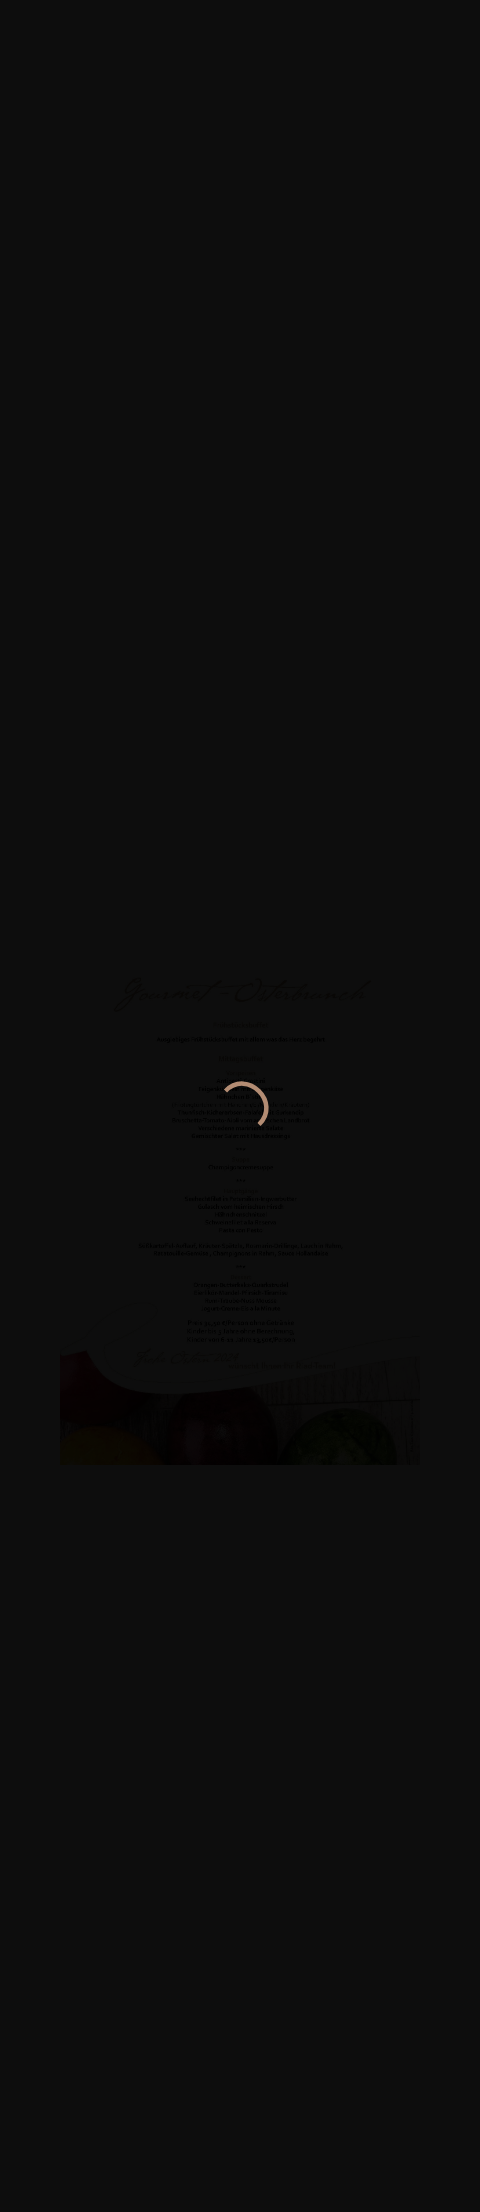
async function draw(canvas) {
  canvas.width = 480;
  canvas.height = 2212;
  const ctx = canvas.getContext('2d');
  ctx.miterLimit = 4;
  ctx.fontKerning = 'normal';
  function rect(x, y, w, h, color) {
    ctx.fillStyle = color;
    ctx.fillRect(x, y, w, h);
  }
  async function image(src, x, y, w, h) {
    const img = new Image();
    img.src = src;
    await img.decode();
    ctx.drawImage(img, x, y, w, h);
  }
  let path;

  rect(0, 0, 480, 2212, '#0d0d0d');
  await image('assets/img1.png', 60, 976, 360, 489);
  path = new Path2D('M225.5 1091C247.5 1068.5 281.5 1102.5 259 1124.5');
  ctx.strokeStyle = '#b38c73';
  ctx.lineWidth = 4.5;
  ctx.stroke(path);
}

draw(document.querySelector('canvas'));
